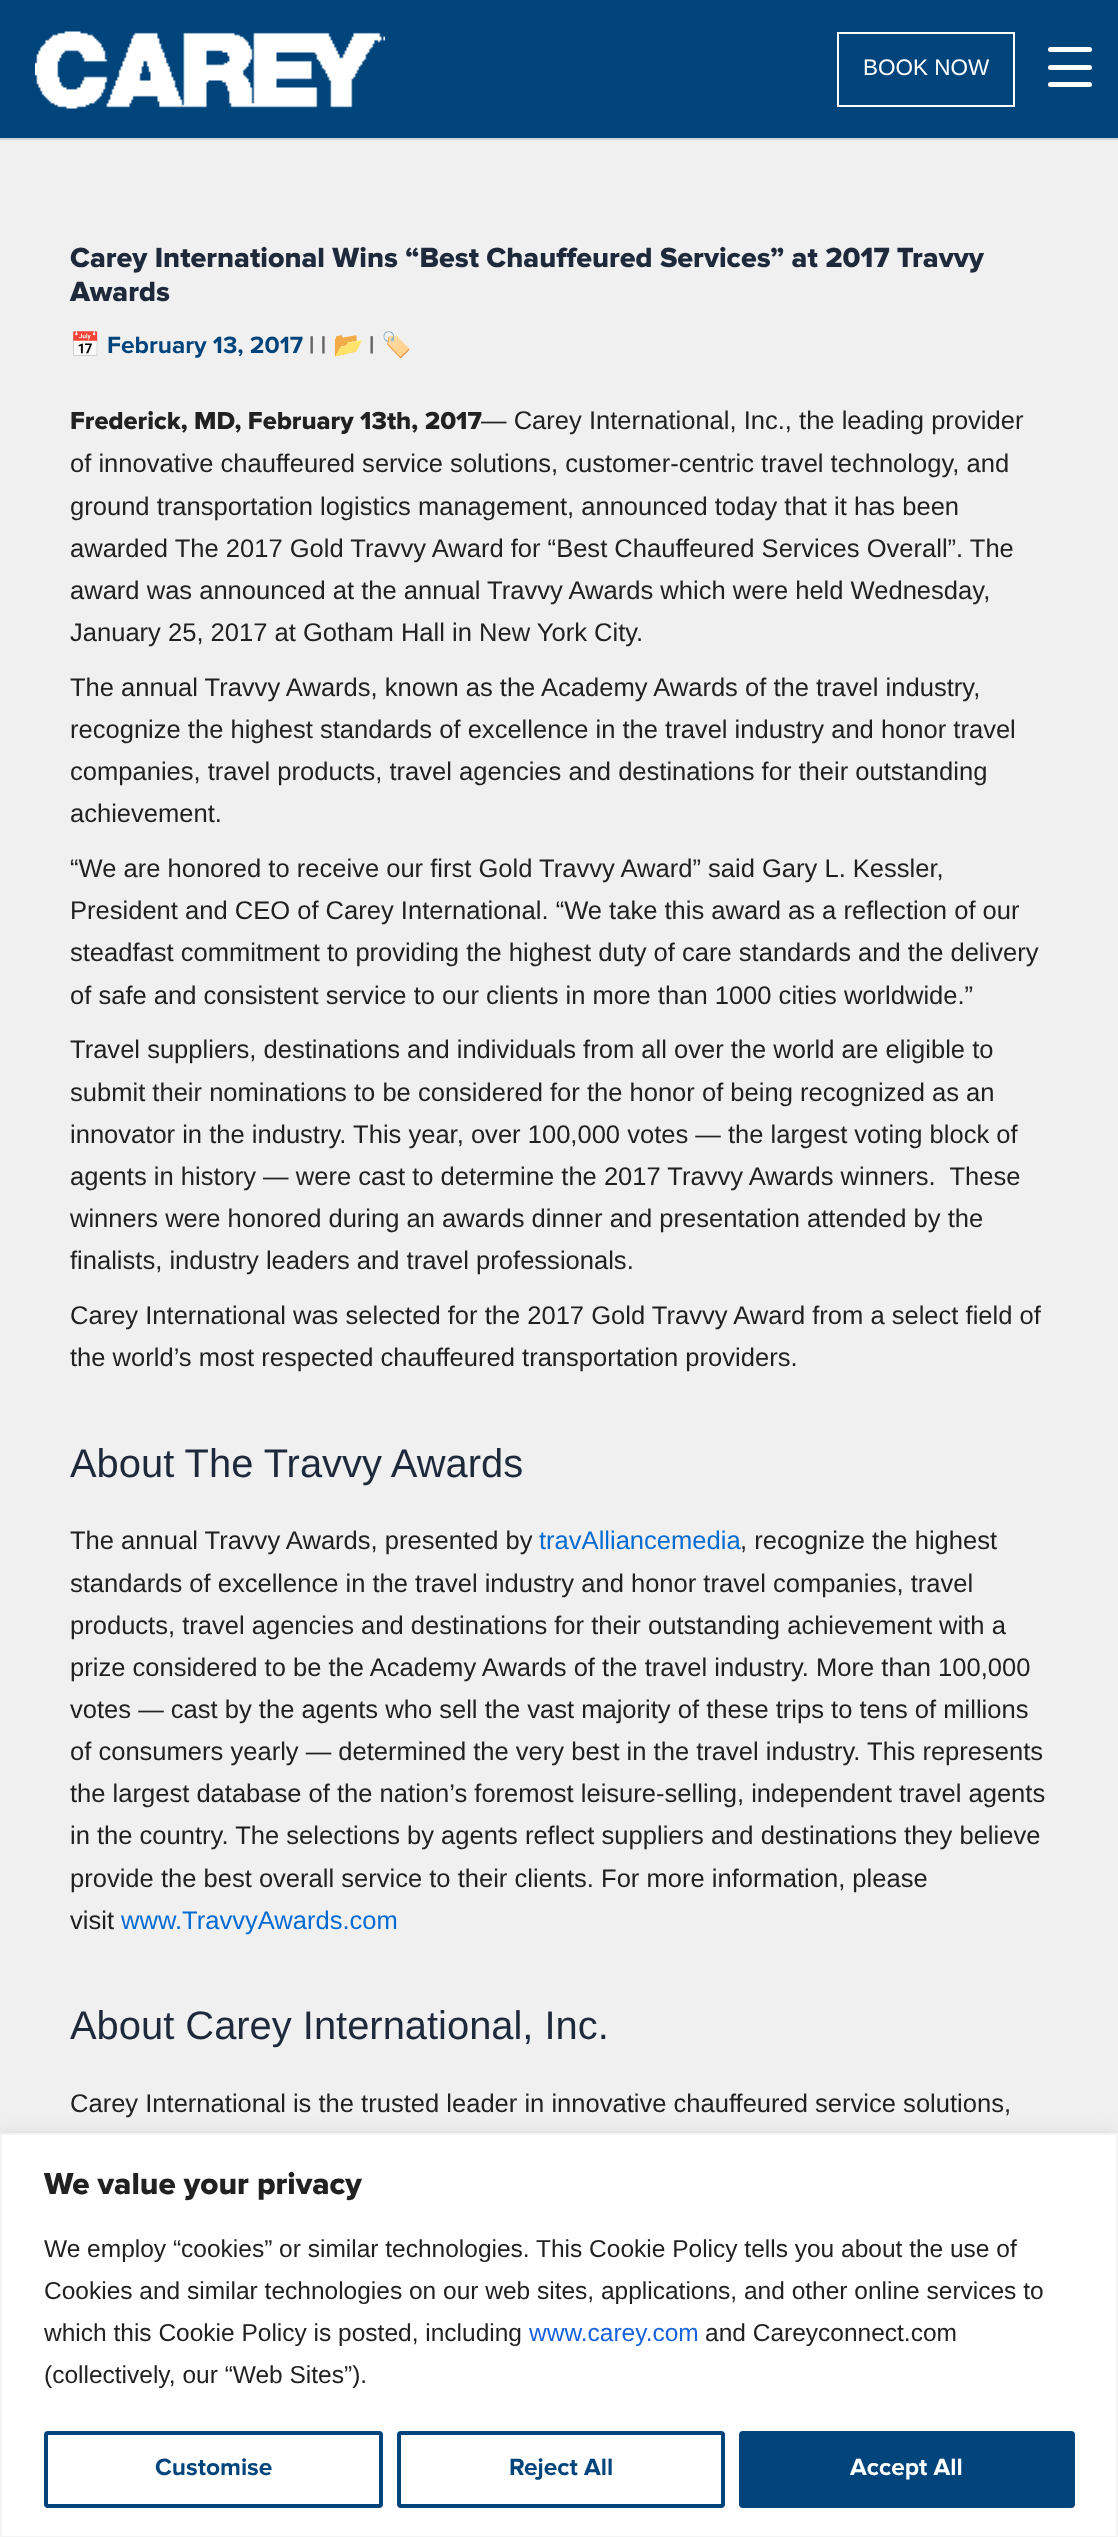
<svg xmlns="http://www.w3.org/2000/svg" width="1118" height="2537" viewBox="0 0 1118 2537">
  <rect width="100%" height="100%" fill="#f0f0f0"/>
  <path d="M0 0h1118v138H0z" fill="#00447c"/>
  <path d="M0 138h1118v2H0z" fill="#d1d5db"/>
  <image x="35" y="31" width="350" height="78" href="img/1.png"/>
  <path d="M838 33h176v73H838z" fill="none" stroke="#fff" stroke-width="2"/>
  <rect x="1048" y="65" width="44" height="5" rx="2.5" fill="#fff"/>
  <rect x="1048" y="47" width="44" height="5" rx="2.5" fill="#fff"/>
  <rect x="1048" y="82" width="44" height="5" rx="2.5" fill="#fff"/>
  <path d="M0 2132h1118v404H0z" fill="#acabab4d" filter="blur(9px)"/>
  <path d="M1 2134h1116v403H1z" fill="#fff" stroke="#f4f4f4" stroke-width="2"/>
  <rect x="46" y="2433" width="335" height="73" rx="2" fill="none" stroke="#00447c" stroke-width="4"/>
  <rect x="399" y="2433" width="324" height="73" rx="2" fill="none" stroke="#00447c" stroke-width="4"/>
  <rect x="741" y="2433" width="332" height="73" rx="2" fill="#00447c" stroke="#00447c" stroke-width="4"/>
  <text x="863" y="75" font-family="Liberation Sans" font-size="22.5" fill="#fff">BOOK NOW</text>
  <g font-family="Proxima Nova" font-size="28.75" font-weight="800" fill="#1e293b">
    <text x="70" y="267">Carey International Wins “Best Chauffeured Services” at 2017 Travvy</text>
    <text x="70" y="301">Awards</text>
  </g>
  <text x="70" y="353" font-family="Noto Color Emoji" font-size="24.5" fill="#00447c">📅</text>
  <text x="107" y="353" font-family="Proxima Nova" font-size="24.5" font-weight="bold" fill="#00447c">February 13, 2017</text>
  <text x="309" y="353" font-family="Proxima Nova" font-size="24.5" font-weight="800" fill="#666">| |</text>
  <text x="333" y="353" font-family="Noto Color Emoji" font-size="24.5" fill="#00447c">📂</text>
  <text x="369" y="353" font-family="Proxima Nova" font-size="24.5" font-weight="800" fill="#666">|</text>
  <text x="381" y="353" font-family="Noto Color Emoji" font-size="24.5" fill="#00447c">🏷️</text>
  <text x="70" y="429" font-family="Proxima Nova" font-size="25.55" font-weight="800" fill="#212121">Frederick, MD, February 13th, 2017</text>
  <g font-family="Liberation Sans" font-size="25.55" fill="#212121">
    <text x="481" y="429">— Carey International, Inc., the leading provider</text>
    <text x="70" y="472">of innovative chauffeured service solutions, customer-centric travel technology, and</text>
    <text x="70" y="515">ground transportation logistics management, announced today that it has been</text>
    <text x="70" y="557">awarded The 2017 Gold Travvy Award for “Best Chauffeured Services Overall”. The</text>
    <text x="70" y="599">award was announced at the annual Travvy Awards which were held Wednesday,</text>
    <text x="70" y="641">January 25, 2017 at Gotham Hall in New York City.</text>
    <text x="70" y="696">The annual Travvy Awards, known as the Academy Awards of the travel industry,</text>
    <text x="70" y="738">recognize the highest standards of excellence in the travel industry and honor travel</text>
    <text x="70" y="780">companies, travel products, travel agencies and destinations for their outstanding</text>
    <text x="70" y="822">achievement.</text>
    <text x="70" y="877">“We are honored to receive our first Gold Travvy Award” said Gary L. Kessler,</text>
    <text x="70" y="919">President and CEO of Carey International. “We take this award as a reflection of our</text>
    <text x="70" y="961">steadfast commitment to providing the highest duty of care standards and the delivery</text>
    <text x="70" y="1004">of safe and consistent service to our clients in more than 1000 cities worldwide.”</text>
    <text x="70" y="1058">Travel suppliers, destinations and individuals from all over the world are eligible to</text>
    <text x="70" y="1101">submit their nominations to be considered for the honor of being recognized as an</text>
    <text x="70" y="1143">innovator in the industry. This year, over 100,000 votes — the largest voting block of</text>
    <text x="70" y="1185" xml:space="preserve">agents in history — were cast to determine the 2017 Travvy Awards winners.  These</text>
    <text x="70" y="1227">winners were honored during an awards dinner and presentation attended by the</text>
    <text x="70" y="1269">finalists, industry leaders and travel professionals.</text>
    <text x="70" y="1324">Carey International was selected for the 2017 Gold Travvy Award from a select field of</text>
    <text x="70" y="1366">the world’s most respected chauffeured transportation providers.</text>
  </g>
  <text x="70" y="1477" font-family="Liberation Sans" font-size="39.9" fill="#1e293b">About The Travvy Awards</text>
  <text x="70" y="1549" font-family="Liberation Sans" font-size="25.55" fill="#212121">The annual Travvy Awards, presented by</text>
  <text x="539" y="1549" font-family="Liberation Sans" font-size="25.55" fill="#046bd2">travAlliancemedia</text>
  <g font-family="Liberation Sans" font-size="25.55" fill="#212121">
    <text x="740" y="1549">, recognize the highest</text>
    <text x="70" y="1592">standards of excellence in the travel industry and honor travel companies, travel</text>
    <text x="70" y="1634">products, travel agencies and destinations for their outstanding achievement with a</text>
    <text x="70" y="1676">prize considered to be the Academy Awards of the travel industry. More than 100,000</text>
    <text x="70" y="1718">votes — cast by the agents who sell the vast majority of these trips to tens of millions</text>
    <text x="70" y="1760">of consumers yearly — determined the very best in the travel industry. This represents</text>
    <text x="70" y="1802">the largest database of the nation’s foremost leisure-selling, independent travel agents</text>
    <text x="70" y="1844">in the country. The selections by agents reflect suppliers and destinations they believe</text>
    <text x="70" y="1887">provide the best overall service to their clients. For more information, please</text>
    <text x="70" y="1929">visit</text>
  </g>
  <text x="121" y="1929" font-family="Liberation Sans" font-size="25.55" fill="#046bd2">www.TravvyAwards.com</text>
  <text x="70" y="2039" font-family="Liberation Sans" font-size="39.9" fill="#1e293b">About Carey International, Inc.</text>
  <text x="70" y="2112" font-family="Liberation Sans" font-size="25.55" fill="#212121">Carey International is the trusted leader in innovative chauffeured service solutions,</text>
  <text x="44" y="2194" font-family="Proxima Nova" font-size="31.5" font-weight="800" fill="#212121">We value your privacy</text>
  <g font-family="Liberation Sans" font-size="24.5" fill="#212121">
    <text x="44" y="2257">We employ “cookies” or similar technologies. This Cookie Policy tells you about the use of</text>
    <text x="44" y="2299">Cookies and similar technologies on our web sites, applications, and other online services to</text>
    <text x="44" y="2341">which this Cookie Policy is posted, including</text>
  </g>
  <text x="529" y="2341" font-family="Liberation Sans" font-size="24.5" fill="#1863dc">www.carey.com</text>
  <g font-family="Liberation Sans" font-size="24.5" fill="#212121">
    <text x="705" y="2341">and Careyconnect.com</text>
    <text x="44" y="2383">(collectively, our “Web Sites”).</text>
  </g>
  <g font-family="Proxima Nova" font-size="24.5" font-weight="bold" fill="#00447c">
    <text x="155" y="2475">Customise</text>
    <text x="509" y="2475">Reject All</text>
  </g>
  <text x="850" y="2475" font-family="Proxima Nova" font-size="24.5" font-weight="bold" fill="#fff">Accept All</text>
</svg>
